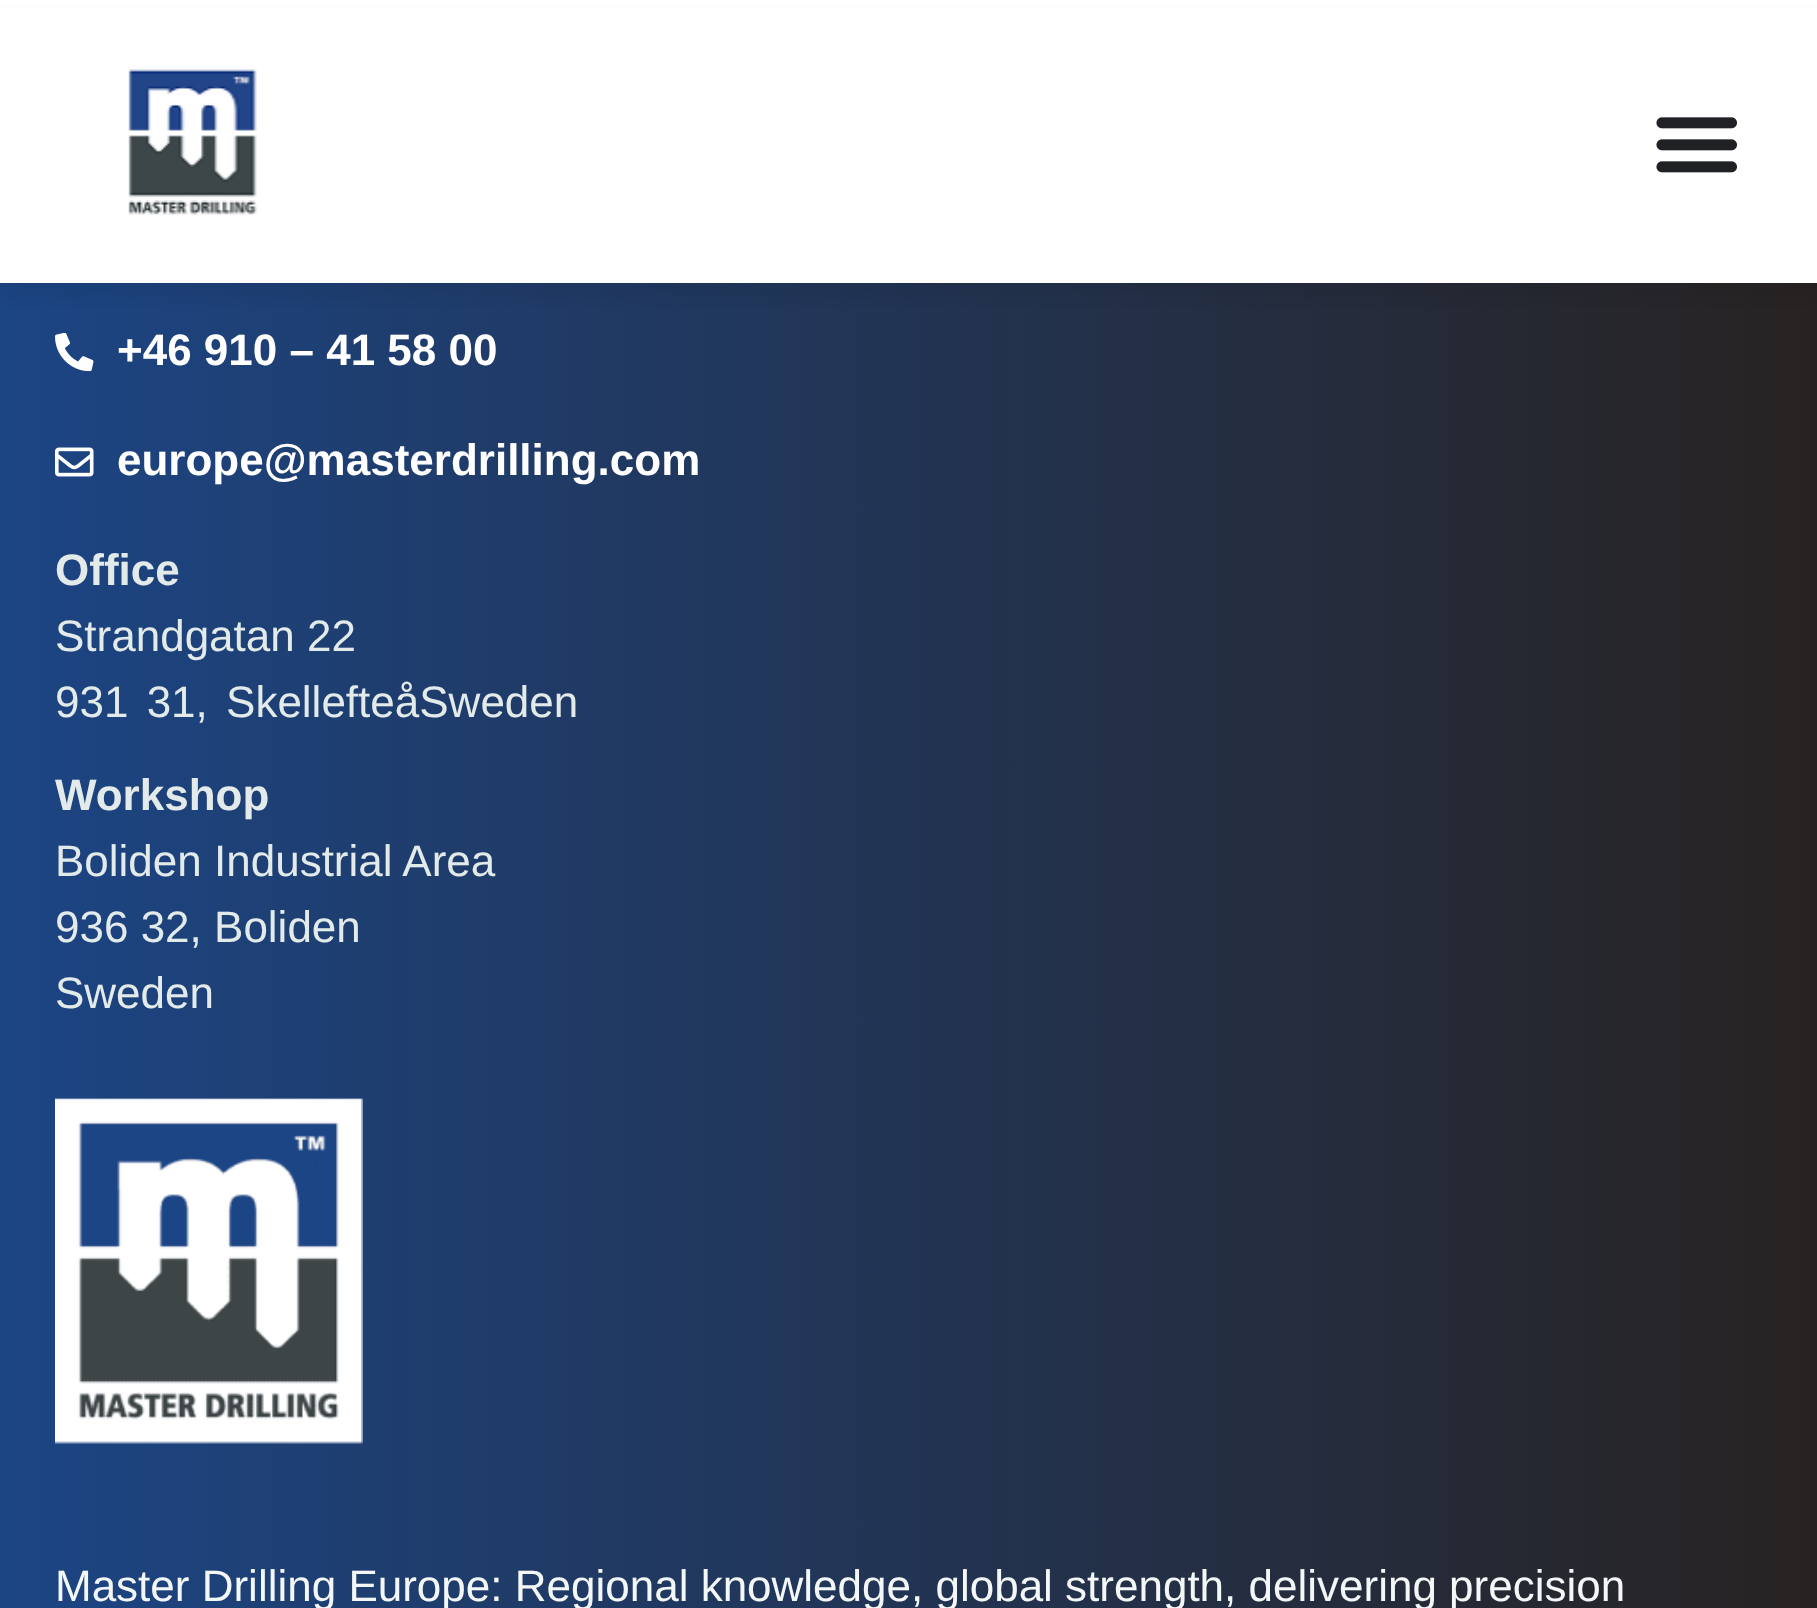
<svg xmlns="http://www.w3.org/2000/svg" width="1817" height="1608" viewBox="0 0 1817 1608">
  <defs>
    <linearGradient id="g1" gradientUnits="userSpaceOnUse" x1="0" y1="925" x2="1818" y2="925"><stop offset="0" stop-color="#1c4584"/><stop offset="1" stop-color="#282322"/></linearGradient>
  </defs>
  <rect width="100%" height="100%" fill="#fff"/>
  <path d="M0 283h1817v1325H0z" fill="url(#g1)"/>
  <path d="M0 14h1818v283H0z" fill="#0000000d" filter="blur(7px)"/>
  <path d="M0 8h1817v275H0z" fill="#fff"/>
  <image x="128" y="69" width="129" height="146" href="img/1.png"/>
  <image x="1656" y="117" width="81" height="56" href="img/2.png"/>
  <image x="55" y="333" width="39" height="38" href="img/3.png"/>
  <image x="55" y="447" width="39" height="30" href="img/4.png"/>
  <image x="55" y="1098" width="308" height="346" href="img/5.png"/>
  <g font-family="Liberation Sans" font-size="44" font-weight="bold" fill="#fff">
    <text x="117" y="365">+46 910 – 41 58 00</text>
    <text x="117" y="475">europe@masterdrilling.com</text>
  </g>
  <text x="55" y="585" font-family="Liberation Sans" font-size="44" font-weight="bold" fill="#e3eaea">Office</text>
  <g font-family="Liberation Sans" font-size="44" fill="#e3eaea">
    <text x="55" y="651">Strandgatan 22</text>
    <text x="55" y="717" word-spacing="6">931 31, SkellefteåSweden</text>
  </g>
  <text x="55" y="810" font-family="Liberation Sans" font-size="44" font-weight="bold" fill="#e3eaea">Workshop</text>
  <g font-family="Liberation Sans" font-size="44" fill="#e3eaea">
    <text x="55" y="876">Boliden Industrial Area</text>
    <text x="55" y="942">936 32, Boliden</text>
    <text x="55" y="1008">Sweden</text>
  </g>
  <text x="55" y="1601" font-family="Liberation Sans" font-size="44" fill="#f4f7f7">Master Drilling Europe: Regional knowledge, global strength, delivering precision</text>
</svg>
